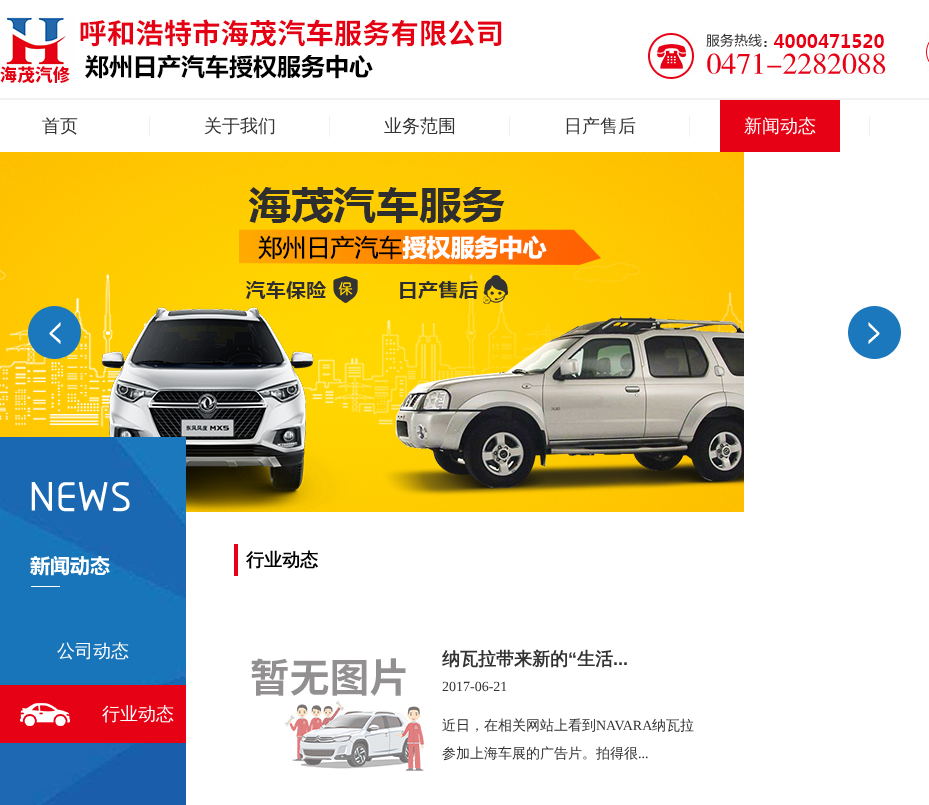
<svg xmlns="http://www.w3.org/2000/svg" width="929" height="805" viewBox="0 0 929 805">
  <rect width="100%" height="100%" fill="#fff"/>
  <image x="0" y="17" width="502" height="67" href="img/1.png"/>
  <image x="648" y="33" width="238" height="46" href="img/2.png"/>
  <image x="926" y="33" width="3" height="38" href="img/3.png"/>
  <path d="M0 98h929v2H0z" fill="#f1f1f1"/>
  <path d="M149 116h1v21H149z" fill="#f1f1f1"/>
  <path d="M329 116h1v21H329z" fill="#f1f1f1"/>
  <path d="M509 116h1v21H509z" fill="#f1f1f1"/>
  <path d="M689 116h1v21H689z" fill="#f1f1f1"/>
  <path d="M869 116h1v21H869z" fill="#f1f1f1"/>
  <path d="M720 100h120v52H720z" fill="#e60115"/>
  <image x="0" y="152" width="744" height="360" href="img/4.png"/>
  <image x="28" y="306" width="53" height="53" href="img/5.png"/>
  <image x="848" y="306" width="53" height="53" href="img/6.png"/>
  <image x="0" y="437" width="186" height="368" href="img/7.png"/>
  <image x="30" y="481" width="100" height="106" href="img/8.png"/>
  <path d="M0 685h186v58H0z" fill="#e60115"/>
  <image x="20" y="703" width="50" height="23" href="img/9.png"/>
  <path d="M234 544h4v32H234z" fill="#e60115"/>
  <image x="251" y="658" width="173" height="113" href="img/10.png"/>
  <g font-family="WenQuanYi Zen Hei" font-size="18" font-weight="500" fill="#333">
    <text x="42" y="132">首页</text>
    <text x="204" y="132">关于我们</text>
    <text x="384" y="132">业务范围</text>
    <text x="564" y="132">日产售后</text>
  </g>
  <g font-family="WenQuanYi Zen Hei" font-size="18" font-weight="500" fill="#fff">
    <text x="744" y="132">新闻动态</text>
    <text x="57" y="657">公司动态</text>
    <text x="102" y="720">行业动态</text>
  </g>
  <text x="246" y="566" font-family="WenQuanYi Zen Hei" font-size="18" font-weight="bold" fill="#000">行业动态</text>
  <text x="442" y="665" font-family="WenQuanYi Zen Hei" font-size="18" font-weight="bold" fill="#333">纳瓦拉带来新的</text>
  <text x="568" y="665" font-family="Liberation Sans" font-size="18" font-weight="bold" fill="#333">“</text>
  <text x="577" y="665" font-family="WenQuanYi Zen Hei" font-size="18" font-weight="bold" fill="#333">生活</text>
  <text x="613" y="665" font-family="Liberation Sans" font-size="18" font-weight="bold" fill="#333">...</text>
  <text x="442" y="691" font-family="Liberation Serif" font-size="14" fill="#333">2017-06-21</text>
  <text x="442" y="730" font-family="WenQuanYi Zen Hei" font-size="14" font-weight="500" fill="#333">近日，在相关网站上看到</text>
  <text x="596" y="730" font-family="Liberation Serif" font-size="14" fill="#333">NAVARA</text>
  <g font-family="WenQuanYi Zen Hei" font-size="14" font-weight="500" fill="#333">
    <text x="652" y="730">纳瓦拉</text>
    <text x="442" y="758">参加上海车展的广告片。拍得很</text>
  </g>
  <text x="638" y="758" font-family="Liberation Serif" font-size="14" fill="#333">...</text>
</svg>
